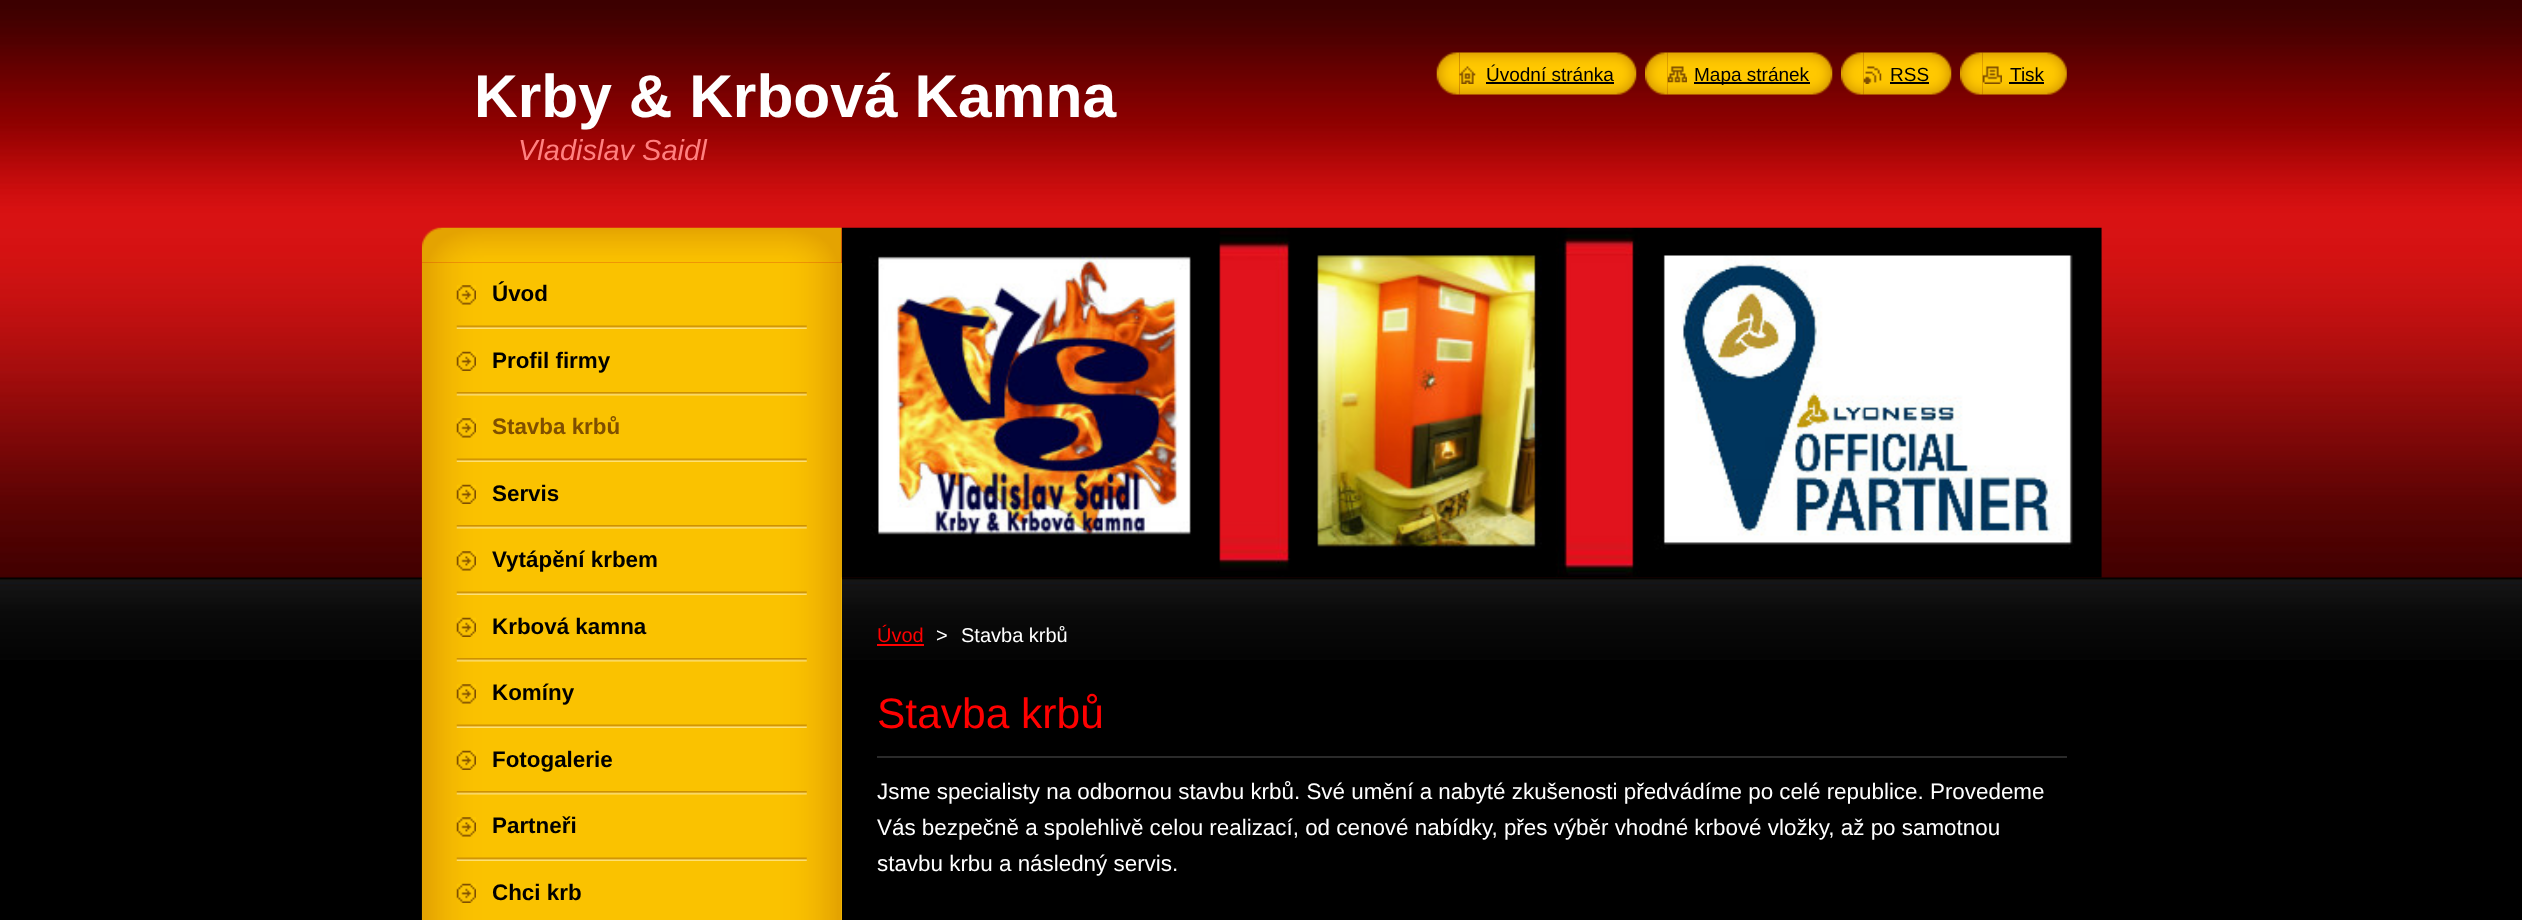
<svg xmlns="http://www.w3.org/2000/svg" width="2522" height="920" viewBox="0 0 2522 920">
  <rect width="100%" height="100%" fill="#000"/>
  <image x="0" y="0" width="2522" height="660" href="img/1.png"/>
  <image x="1436" y="52" width="24" height="43" href="img/2.png"/>
  <image x="1459" y="52" width="178" height="43" href="img/3.png"/>
  <image x="1459" y="66" width="17" height="18" href="img/4.png"/>
  <path d="M1486 82h128v2H1486z" fill="#000"/>
  <image x="1645" y="52" width="23" height="43" href="img/5.png"/>
  <image x="1667" y="52" width="166" height="43" href="img/6.png"/>
  <image x="1667" y="66" width="20" height="17" href="img/7.png"/>
  <path d="M1694 82h116v2H1694z" fill="#000"/>
  <image x="1841" y="52" width="23" height="43" href="img/8.png"/>
  <image x="1863" y="52" width="89" height="43" href="img/9.png"/>
  <image x="1863" y="66" width="19" height="18" href="img/10.png"/>
  <path d="M1890 82h39v2H1890z" fill="#000"/>
  <image x="1960" y="52" width="23" height="43" href="img/5.png"/>
  <image x="1982" y="52" width="85" height="43" href="img/11.png"/>
  <image x="1982" y="66" width="20" height="18" href="img/12.png"/>
  <path d="M2009 82h35v2H2009z" fill="#000"/>
  <image x="421" y="227" width="421" height="36" href="img/13.png"/>
  <path d="M841 263h1v657H841z" fill="#ffc800"/>
  <image x="421" y="262" width="421" height="658" href="img/14.png"/>
  <image x="456" y="325" width="351" height="4" href="img/15.png"/>
  <image x="456" y="285" width="20" height="20" href="img/16.png"/>
  <image x="456" y="392" width="351" height="4" href="img/17.png"/>
  <image x="456" y="351" width="20" height="20" href="img/18.png"/>
  <image x="456" y="458" width="351" height="4" href="img/15.png"/>
  <image x="456" y="418" width="20" height="20" href="img/16.png"/>
  <image x="456" y="525" width="351" height="4" href="img/17.png"/>
  <image x="456" y="484" width="20" height="20" href="img/18.png"/>
  <image x="456" y="591" width="351" height="4" href="img/15.png"/>
  <image x="456" y="551" width="20" height="20" href="img/16.png"/>
  <image x="456" y="658" width="351" height="4" href="img/17.png"/>
  <image x="456" y="617" width="20" height="20" href="img/18.png"/>
  <image x="456" y="724" width="351" height="4" href="img/15.png"/>
  <image x="456" y="684" width="20" height="20" href="img/16.png"/>
  <image x="456" y="791" width="351" height="4" href="img/17.png"/>
  <image x="456" y="750" width="20" height="20" href="img/18.png"/>
  <image x="456" y="857" width="351" height="4" href="img/15.png"/>
  <image x="456" y="817" width="20" height="20" href="img/16.png"/>
  <image x="456" y="883" width="20" height="20" href="img/18.png"/>
  <image x="841" y="227" width="1261" height="351" href="img/19.png"/>
  <path d="M877 644h47v2H877z" fill="#f00"/>
  <path d="M877 756h1190v2H877z" fill="#2a2a2a"/>
  <text x="474" y="117" font-family="Liberation Sans" font-size="60.5" font-weight="bold" fill="#fff">Krby &amp; Krbová Kamna</text>
  <text x="518" y="160" font-family="Liberation Sans" font-size="29" font-style="italic" fill="#ff8080">Vladislav Saidl</text>
  <g font-family="Liberation Sans" font-size="19" fill="#000">
    <text x="1486" y="81">Úvodní stránka</text>
    <text x="1694" y="81">Mapa stránek</text>
    <text x="1890" y="81">RSS</text>
    <text x="2010" y="81">Tisk</text>
  </g>
  <g font-family="Liberation Sans" font-size="22.4" font-weight="bold" fill="#000">
    <text x="492" y="301">Úvod</text>
    <text x="492" y="368">Profil firmy</text>
  </g>
  <text x="492" y="434" font-family="Liberation Sans" font-size="22.4" font-weight="bold" fill="#7f4f00">Stavba krbů</text>
  <g font-family="Liberation Sans" font-size="22.4" font-weight="bold" fill="#000">
    <text x="492" y="501">Servis</text>
    <text x="492" y="567">Vytápění krbem</text>
    <text x="492" y="634">Krbová kamna</text>
    <text x="492" y="700">Komíny</text>
    <text x="492" y="767">Fotogalerie</text>
    <text x="492" y="833">Partneři</text>
    <text x="492" y="900">Chci krb</text>
  </g>
  <text x="877" y="642" font-family="Liberation Sans" font-size="20" fill="#f00">Úvod</text>
  <g font-family="Liberation Sans" font-size="20" fill="#fff">
    <text x="936" y="642">&gt;</text>
    <text x="961" y="642">Stavba krbů</text>
  </g>
  <text x="877" y="728" font-family="Liberation Sans" font-size="42.5" fill="#f00">Stavba krbů</text>
  <g font-family="Liberation Sans" font-size="22.4" fill="#fff">
    <text x="877" y="799">Jsme specialisty na odbornou stavbu krbů. Své umění a nabyté zkušenosti předvádíme po celé republice. Provedeme</text>
    <text x="877" y="835">Vás bezpečně a spolehlivě celou realizací, od cenové nabídky, přes výběr vhodné krbové vložky, až po samotnou</text>
    <text x="877" y="871">stavbu krbu a následný servis.</text>
  </g>
</svg>
